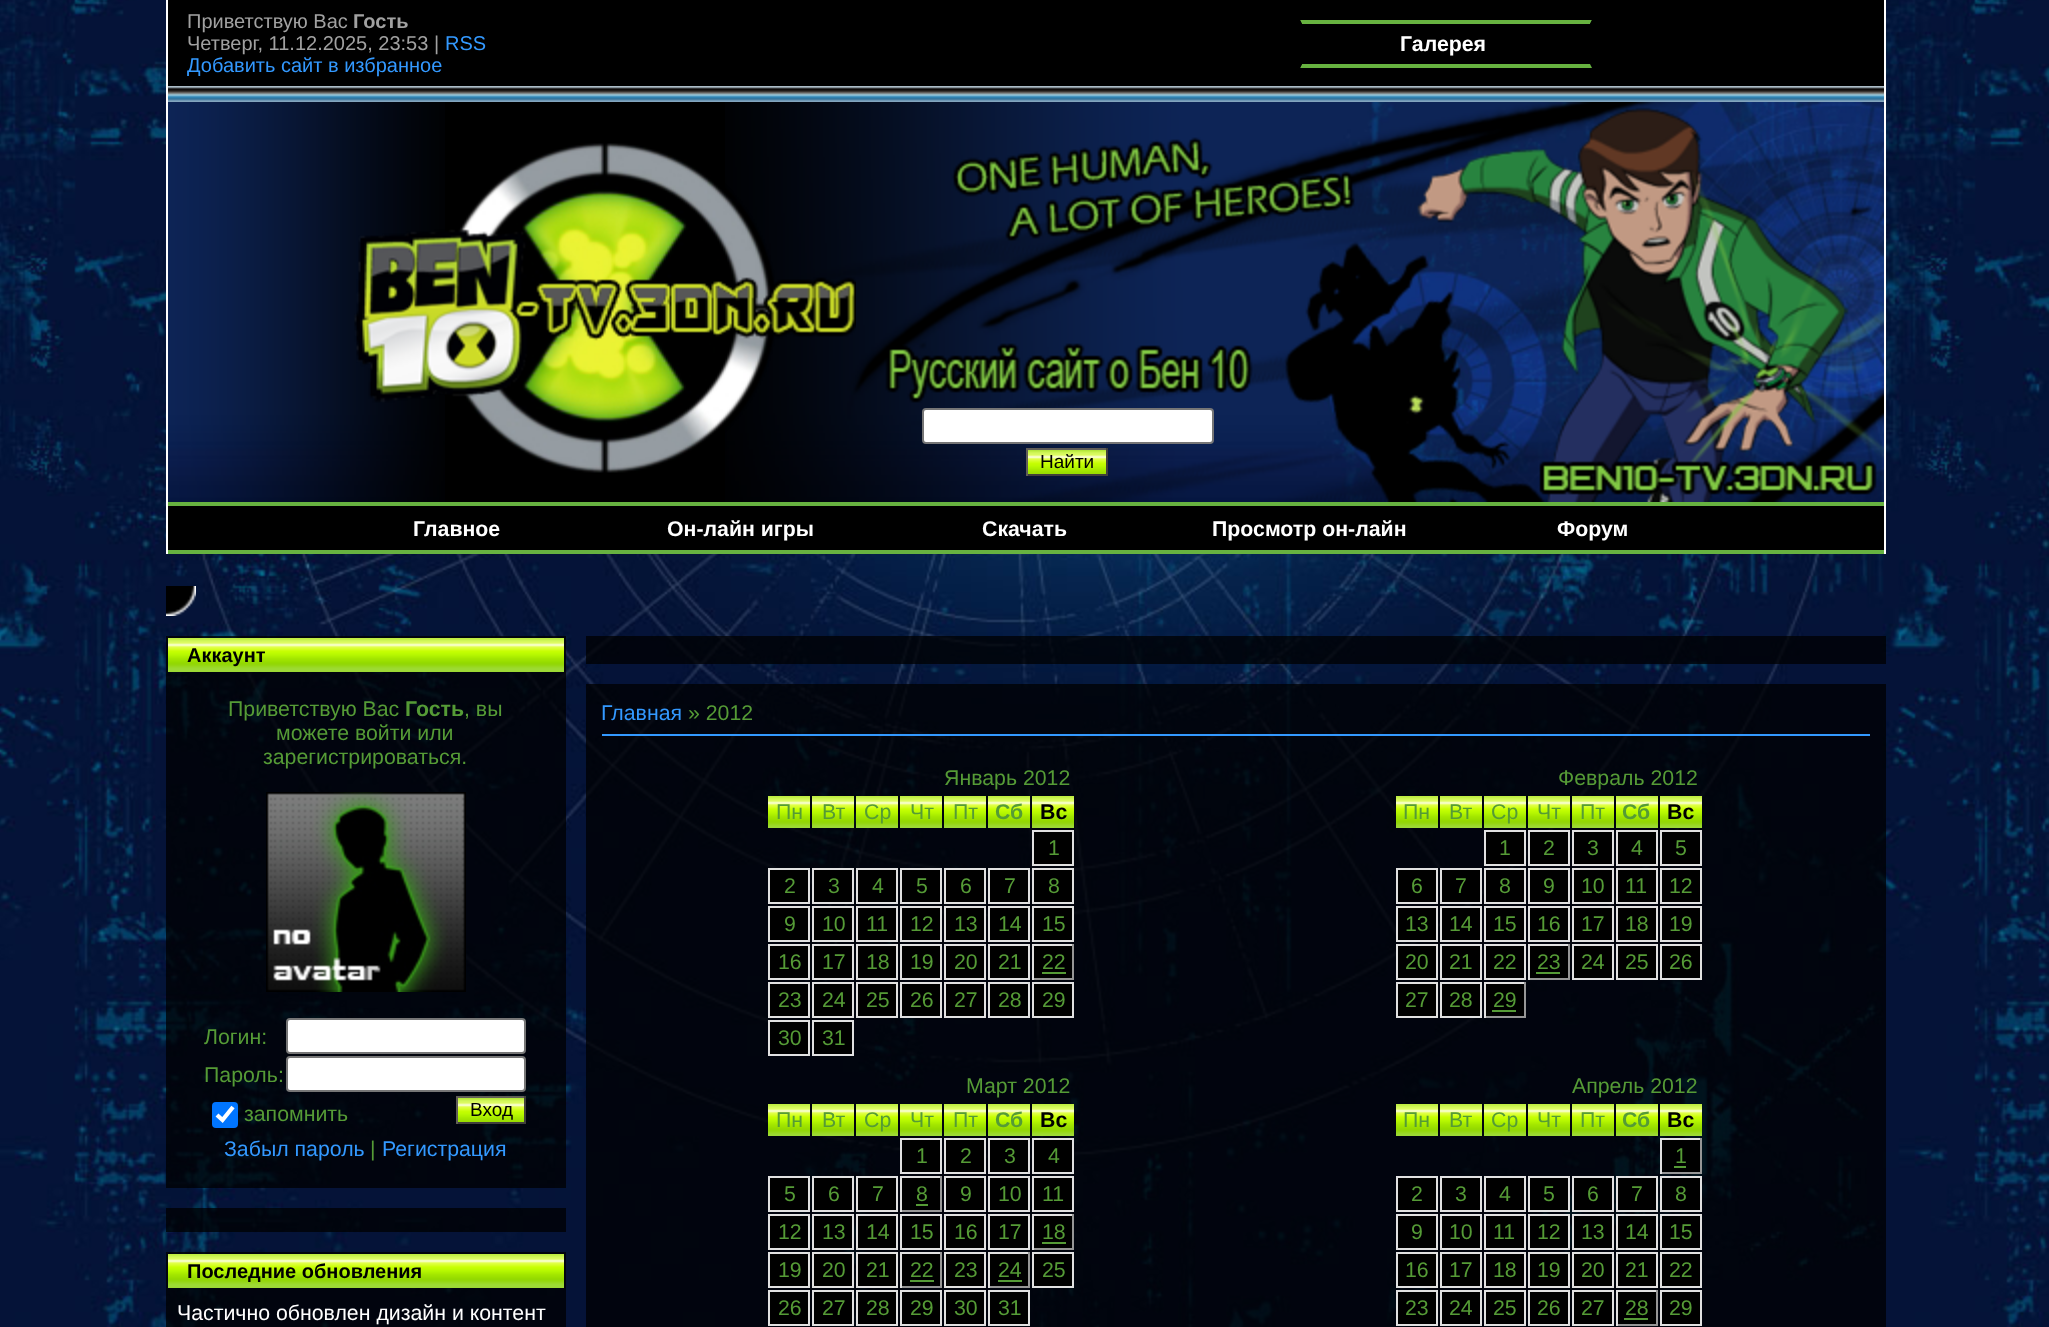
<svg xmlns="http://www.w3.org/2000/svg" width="2049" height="1327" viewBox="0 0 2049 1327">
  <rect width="100%" height="100%" fill="#fff"/>
  <image x="0" y="0" width="2049" height="1327" href="img/1.png"/>
  <path d="M1884 0h2v554H1884z" fill="#fff"/>
  <path d="M166 0h2v554H166z" fill="#fff"/>
  <path d="M168 0h1716v86H168z" fill="#000"/>
  <path d="M1300 20H1592L1590 24H1302Z" fill="#67b240"/>
  <path d="M1592 20V68L1590 64V24Z" fill="#000"/>
  <path d="M1592 68H1300L1302 64H1590Z" fill="#67b240"/>
  <path d="M1300 68V20L1302 24V64Z" fill="#000"/>
  <image x="168" y="86" width="1716" height="16" href="img/2.png"/>
  <path d="M445 102h280v400H445z" fill="#000"/>
  <image x="725" y="102" width="1159" height="400" href="img/3.png"/>
  <image x="168" y="102" width="277" height="400" href="img/4.png"/>
  <image x="354" y="143" width="502" height="330" href="img/5.png"/>
  <rect x="923" y="409" width="290" height="34" rx="3" fill="#fff" stroke="#767676" stroke-width="2"/>
  <image x="1028" y="450" width="78" height="24" href="img/6.png"/>
  <path d="M1026 448h82v2H1026z" fill="#615e58"/>
  <path d="M1106 448h2v28H1106z" fill="#413f3b"/>
  <path d="M1026 474h82v2H1026z" fill="#413f3b"/>
  <path d="M1026 448h2v28H1026z" fill="#615e58"/>
  <path d="M168 506h1716v44H168z" fill="#000"/>
  <path d="M168 502h1716v4H168z" fill="#67b240"/>
  <path d="M168 550h1716v4H168z" fill="#67b240"/>
  <image x="166" y="586" width="30" height="30" href="img/7.png"/>
  <path d="M166 636h400v552H166z" fill="#000000bf"/>
  <image x="168" y="638" width="396" height="34" href="img/8.png"/>
  <image x="266" y="792" width="200" height="200" href="img/9.png"/>
  <rect x="287" y="1019" width="238" height="34" rx="3" fill="#fff" stroke="#767676" stroke-width="2"/>
  <rect x="287" y="1057" width="238" height="34" rx="3" fill="#fff" stroke="#767676" stroke-width="2"/>
  <rect x="212" y="1102" width="26" height="26" rx="4" fill="#0075ff"/>
  <path d="M217 1115L222.5 1120L233 1107" fill="none" stroke="#fff" stroke-width="4.2"/>
  <image x="458" y="1098" width="66" height="24" href="img/10.png"/>
  <path d="M456 1096h70v2H456z" fill="#615e58"/>
  <path d="M524 1096h2v28H524z" fill="#413f3b"/>
  <path d="M456 1122h70v2H456z" fill="#413f3b"/>
  <path d="M456 1096h2v28H456z" fill="#615e58"/>
  <path d="M166 1208h400v24H166z" fill="#000000bf"/>
  <path d="M166 1252h400v75H166z" fill="#000000bf"/>
  <image x="168" y="1254" width="396" height="34" href="img/8.png"/>
  <path d="M586 636h1300v28H586z" fill="#000000bf"/>
  <path d="M586 684h1300v643H586z" fill="#000000bf"/>
  <path d="M602 734h1268v2H602z" fill="#39f"/>
  <image x="768" y="796" width="42" height="32" href="img/11.png"/>
  <image x="812" y="796" width="42" height="32" href="img/11.png"/>
  <image x="856" y="796" width="42" height="32" href="img/11.png"/>
  <image x="900" y="796" width="42" height="32" href="img/11.png"/>
  <image x="944" y="796" width="42" height="32" href="img/11.png"/>
  <image x="988" y="796" width="42" height="32" href="img/11.png"/>
  <image x="1032" y="796" width="42" height="32" href="img/11.png"/>
  <path d="M1033 831h40v34H1033z" fill="#000" stroke="#e1e1e1" stroke-width="2"/>
  <path d="M769 869h40v34H769z" fill="#000" stroke="#e1e1e1" stroke-width="2"/>
  <path d="M813 869h40v34H813z" fill="#000" stroke="#e1e1e1" stroke-width="2"/>
  <path d="M857 869h40v34H857z" fill="#000" stroke="#e1e1e1" stroke-width="2"/>
  <path d="M901 869h40v34H901z" fill="#000" stroke="#e1e1e1" stroke-width="2"/>
  <path d="M945 869h40v34H945z" fill="#000" stroke="#e1e1e1" stroke-width="2"/>
  <path d="M989 869h40v34H989z" fill="#000" stroke="#e1e1e1" stroke-width="2"/>
  <path d="M1033 869h40v34H1033z" fill="#000" stroke="#e1e1e1" stroke-width="2"/>
  <path d="M769 907h40v34H769z" fill="#000" stroke="#e1e1e1" stroke-width="2"/>
  <path d="M813 907h40v34H813z" fill="#000" stroke="#e1e1e1" stroke-width="2"/>
  <path d="M857 907h40v34H857z" fill="#000" stroke="#e1e1e1" stroke-width="2"/>
  <path d="M901 907h40v34H901z" fill="#000" stroke="#e1e1e1" stroke-width="2"/>
  <path d="M945 907h40v34H945z" fill="#000" stroke="#e1e1e1" stroke-width="2"/>
  <path d="M989 907h40v34H989z" fill="#000" stroke="#e1e1e1" stroke-width="2"/>
  <path d="M1033 907h40v34H1033z" fill="#000" stroke="#e1e1e1" stroke-width="2"/>
  <path d="M769 945h40v34H769z" fill="#000" stroke="#e1e1e1" stroke-width="2"/>
  <path d="M813 945h40v34H813z" fill="#000" stroke="#e1e1e1" stroke-width="2"/>
  <path d="M857 945h40v34H857z" fill="#000" stroke="#e1e1e1" stroke-width="2"/>
  <path d="M901 945h40v34H901z" fill="#000" stroke="#e1e1e1" stroke-width="2"/>
  <path d="M945 945h40v34H945z" fill="#000" stroke="#e1e1e1" stroke-width="2"/>
  <path d="M989 945h40v34H989z" fill="#000" stroke="#e1e1e1" stroke-width="2"/>
  <path d="M1034 946h38v32H1034z" fill="#000"/>
  <path d="M1032 944h42v2H1032z" fill="#e1e1e1"/>
  <path d="M1072 944h2v36H1072z" fill="#969696"/>
  <path d="M1032 978h42v2H1032z" fill="#969696"/>
  <path d="M1032 944h2v36H1032z" fill="#e1e1e1"/>
  <path d="M1042 972h24v2H1042z" fill="#559b36"/>
  <path d="M769 983h40v34H769z" fill="#000" stroke="#e1e1e1" stroke-width="2"/>
  <path d="M813 983h40v34H813z" fill="#000" stroke="#e1e1e1" stroke-width="2"/>
  <path d="M857 983h40v34H857z" fill="#000" stroke="#e1e1e1" stroke-width="2"/>
  <path d="M901 983h40v34H901z" fill="#000" stroke="#e1e1e1" stroke-width="2"/>
  <path d="M945 983h40v34H945z" fill="#000" stroke="#e1e1e1" stroke-width="2"/>
  <path d="M989 983h40v34H989z" fill="#000" stroke="#e1e1e1" stroke-width="2"/>
  <path d="M1033 983h40v34H1033z" fill="#000" stroke="#e1e1e1" stroke-width="2"/>
  <path d="M769 1021h40v34H769z" fill="#000" stroke="#e1e1e1" stroke-width="2"/>
  <path d="M813 1021h40v34H813z" fill="#000" stroke="#e1e1e1" stroke-width="2"/>
  <image x="1396" y="796" width="42" height="32" href="img/11.png"/>
  <image x="1440" y="796" width="42" height="32" href="img/11.png"/>
  <image x="1484" y="796" width="42" height="32" href="img/11.png"/>
  <image x="1528" y="796" width="42" height="32" href="img/11.png"/>
  <image x="1572" y="796" width="42" height="32" href="img/11.png"/>
  <image x="1616" y="796" width="42" height="32" href="img/11.png"/>
  <image x="1660" y="796" width="42" height="32" href="img/11.png"/>
  <path d="M1485 831h40v34H1485z" fill="#000" stroke="#e1e1e1" stroke-width="2"/>
  <path d="M1529 831h40v34H1529z" fill="#000" stroke="#e1e1e1" stroke-width="2"/>
  <path d="M1573 831h40v34H1573z" fill="#000" stroke="#e1e1e1" stroke-width="2"/>
  <path d="M1617 831h40v34H1617z" fill="#000" stroke="#e1e1e1" stroke-width="2"/>
  <path d="M1661 831h40v34H1661z" fill="#000" stroke="#e1e1e1" stroke-width="2"/>
  <path d="M1397 869h40v34H1397z" fill="#000" stroke="#e1e1e1" stroke-width="2"/>
  <path d="M1441 869h40v34H1441z" fill="#000" stroke="#e1e1e1" stroke-width="2"/>
  <path d="M1485 869h40v34H1485z" fill="#000" stroke="#e1e1e1" stroke-width="2"/>
  <path d="M1529 869h40v34H1529z" fill="#000" stroke="#e1e1e1" stroke-width="2"/>
  <path d="M1573 869h40v34H1573z" fill="#000" stroke="#e1e1e1" stroke-width="2"/>
  <path d="M1617 869h40v34H1617z" fill="#000" stroke="#e1e1e1" stroke-width="2"/>
  <path d="M1661 869h40v34H1661z" fill="#000" stroke="#e1e1e1" stroke-width="2"/>
  <path d="M1397 907h40v34H1397z" fill="#000" stroke="#e1e1e1" stroke-width="2"/>
  <path d="M1441 907h40v34H1441z" fill="#000" stroke="#e1e1e1" stroke-width="2"/>
  <path d="M1485 907h40v34H1485z" fill="#000" stroke="#e1e1e1" stroke-width="2"/>
  <path d="M1529 907h40v34H1529z" fill="#000" stroke="#e1e1e1" stroke-width="2"/>
  <path d="M1573 907h40v34H1573z" fill="#000" stroke="#e1e1e1" stroke-width="2"/>
  <path d="M1617 907h40v34H1617z" fill="#000" stroke="#e1e1e1" stroke-width="2"/>
  <path d="M1661 907h40v34H1661z" fill="#000" stroke="#e1e1e1" stroke-width="2"/>
  <path d="M1397 945h40v34H1397z" fill="#000" stroke="#e1e1e1" stroke-width="2"/>
  <path d="M1441 945h40v34H1441z" fill="#000" stroke="#e1e1e1" stroke-width="2"/>
  <path d="M1485 945h40v34H1485z" fill="#000" stroke="#e1e1e1" stroke-width="2"/>
  <path d="M1530 946h38v32H1530z" fill="#000"/>
  <path d="M1528 944h42v2H1528z" fill="#e1e1e1"/>
  <path d="M1568 944h2v36H1568z" fill="#969696"/>
  <path d="M1528 978h42v2H1528z" fill="#969696"/>
  <path d="M1528 944h2v36H1528z" fill="#e1e1e1"/>
  <path d="M1536 972h24v2H1536z" fill="#559b36"/>
  <path d="M1573 945h40v34H1573z" fill="#000" stroke="#e1e1e1" stroke-width="2"/>
  <path d="M1617 945h40v34H1617z" fill="#000" stroke="#e1e1e1" stroke-width="2"/>
  <path d="M1661 945h40v34H1661z" fill="#000" stroke="#e1e1e1" stroke-width="2"/>
  <path d="M1397 983h40v34H1397z" fill="#000" stroke="#e1e1e1" stroke-width="2"/>
  <path d="M1441 983h40v34H1441z" fill="#000" stroke="#e1e1e1" stroke-width="2"/>
  <path d="M1486 984h38v32H1486z" fill="#000"/>
  <path d="M1484 982h42v2H1484z" fill="#e1e1e1"/>
  <path d="M1524 982h2v36H1524z" fill="#969696"/>
  <path d="M1484 1016h42v2H1484z" fill="#969696"/>
  <path d="M1484 982h2v36H1484z" fill="#e1e1e1"/>
  <path d="M1492 1010h24v2H1492z" fill="#559b36"/>
  <image x="768" y="1104" width="42" height="32" href="img/11.png"/>
  <image x="812" y="1104" width="42" height="32" href="img/11.png"/>
  <image x="856" y="1104" width="42" height="32" href="img/11.png"/>
  <image x="900" y="1104" width="42" height="32" href="img/11.png"/>
  <image x="944" y="1104" width="42" height="32" href="img/11.png"/>
  <image x="988" y="1104" width="42" height="32" href="img/11.png"/>
  <image x="1032" y="1104" width="42" height="32" href="img/11.png"/>
  <path d="M901 1139h40v34H901z" fill="#000" stroke="#e1e1e1" stroke-width="2"/>
  <path d="M945 1139h40v34H945z" fill="#000" stroke="#e1e1e1" stroke-width="2"/>
  <path d="M989 1139h40v34H989z" fill="#000" stroke="#e1e1e1" stroke-width="2"/>
  <path d="M1033 1139h40v34H1033z" fill="#000" stroke="#e1e1e1" stroke-width="2"/>
  <path d="M769 1177h40v34H769z" fill="#000" stroke="#e1e1e1" stroke-width="2"/>
  <path d="M813 1177h40v34H813z" fill="#000" stroke="#e1e1e1" stroke-width="2"/>
  <path d="M857 1177h40v34H857z" fill="#000" stroke="#e1e1e1" stroke-width="2"/>
  <path d="M902 1178h38v32H902z" fill="#000"/>
  <path d="M900 1176h42v2H900z" fill="#e1e1e1"/>
  <path d="M940 1176h2v36H940z" fill="#969696"/>
  <path d="M900 1210h42v2H900z" fill="#969696"/>
  <path d="M900 1176h2v36H900z" fill="#e1e1e1"/>
  <path d="M916 1204h12v2H916z" fill="#559b36"/>
  <path d="M945 1177h40v34H945z" fill="#000" stroke="#e1e1e1" stroke-width="2"/>
  <path d="M989 1177h40v34H989z" fill="#000" stroke="#e1e1e1" stroke-width="2"/>
  <path d="M1033 1177h40v34H1033z" fill="#000" stroke="#e1e1e1" stroke-width="2"/>
  <path d="M769 1215h40v34H769z" fill="#000" stroke="#e1e1e1" stroke-width="2"/>
  <path d="M813 1215h40v34H813z" fill="#000" stroke="#e1e1e1" stroke-width="2"/>
  <path d="M857 1215h40v34H857z" fill="#000" stroke="#e1e1e1" stroke-width="2"/>
  <path d="M901 1215h40v34H901z" fill="#000" stroke="#e1e1e1" stroke-width="2"/>
  <path d="M945 1215h40v34H945z" fill="#000" stroke="#e1e1e1" stroke-width="2"/>
  <path d="M989 1215h40v34H989z" fill="#000" stroke="#e1e1e1" stroke-width="2"/>
  <path d="M1034 1216h38v32H1034z" fill="#000"/>
  <path d="M1032 1214h42v2H1032z" fill="#e1e1e1"/>
  <path d="M1072 1214h2v36H1072z" fill="#969696"/>
  <path d="M1032 1248h42v2H1032z" fill="#969696"/>
  <path d="M1032 1214h2v36H1032z" fill="#e1e1e1"/>
  <path d="M1042 1242h24v2H1042z" fill="#559b36"/>
  <path d="M769 1253h40v34H769z" fill="#000" stroke="#e1e1e1" stroke-width="2"/>
  <path d="M813 1253h40v34H813z" fill="#000" stroke="#e1e1e1" stroke-width="2"/>
  <path d="M857 1253h40v34H857z" fill="#000" stroke="#e1e1e1" stroke-width="2"/>
  <path d="M902 1254h38v32H902z" fill="#000"/>
  <path d="M900 1252h42v2H900z" fill="#e1e1e1"/>
  <path d="M940 1252h2v36H940z" fill="#969696"/>
  <path d="M900 1286h42v2H900z" fill="#969696"/>
  <path d="M900 1252h2v36H900z" fill="#e1e1e1"/>
  <path d="M910 1280h24v2H910z" fill="#559b36"/>
  <path d="M945 1253h40v34H945z" fill="#000" stroke="#e1e1e1" stroke-width="2"/>
  <path d="M990 1254h38v32H990z" fill="#000"/>
  <path d="M988 1252h42v2H988z" fill="#e1e1e1"/>
  <path d="M1028 1252h2v36H1028z" fill="#969696"/>
  <path d="M988 1286h42v2H988z" fill="#969696"/>
  <path d="M988 1252h2v36H988z" fill="#e1e1e1"/>
  <path d="M998 1280h24v2H998z" fill="#559b36"/>
  <path d="M1033 1253h40v34H1033z" fill="#000" stroke="#e1e1e1" stroke-width="2"/>
  <path d="M769 1291h40v34H769z" fill="#000" stroke="#e1e1e1" stroke-width="2"/>
  <path d="M813 1291h40v34H813z" fill="#000" stroke="#e1e1e1" stroke-width="2"/>
  <path d="M857 1291h40v34H857z" fill="#000" stroke="#e1e1e1" stroke-width="2"/>
  <path d="M901 1291h40v34H901z" fill="#000" stroke="#e1e1e1" stroke-width="2"/>
  <path d="M945 1291h40v34H945z" fill="#000" stroke="#e1e1e1" stroke-width="2"/>
  <path d="M989 1291h40v34H989z" fill="#000" stroke="#e1e1e1" stroke-width="2"/>
  <image x="1396" y="1104" width="42" height="32" href="img/11.png"/>
  <image x="1440" y="1104" width="42" height="32" href="img/11.png"/>
  <image x="1484" y="1104" width="42" height="32" href="img/11.png"/>
  <image x="1528" y="1104" width="42" height="32" href="img/11.png"/>
  <image x="1572" y="1104" width="42" height="32" href="img/11.png"/>
  <image x="1616" y="1104" width="42" height="32" href="img/11.png"/>
  <image x="1660" y="1104" width="42" height="32" href="img/11.png"/>
  <path d="M1662 1140h38v32H1662z" fill="#000"/>
  <path d="M1660 1138h42v2H1660z" fill="#e1e1e1"/>
  <path d="M1700 1138h2v36H1700z" fill="#969696"/>
  <path d="M1660 1172h42v2H1660z" fill="#969696"/>
  <path d="M1660 1138h2v36H1660z" fill="#e1e1e1"/>
  <path d="M1674 1166h12v2H1674z" fill="#559b36"/>
  <path d="M1397 1177h40v34H1397z" fill="#000" stroke="#e1e1e1" stroke-width="2"/>
  <path d="M1441 1177h40v34H1441z" fill="#000" stroke="#e1e1e1" stroke-width="2"/>
  <path d="M1485 1177h40v34H1485z" fill="#000" stroke="#e1e1e1" stroke-width="2"/>
  <path d="M1529 1177h40v34H1529z" fill="#000" stroke="#e1e1e1" stroke-width="2"/>
  <path d="M1573 1177h40v34H1573z" fill="#000" stroke="#e1e1e1" stroke-width="2"/>
  <path d="M1617 1177h40v34H1617z" fill="#000" stroke="#e1e1e1" stroke-width="2"/>
  <path d="M1661 1177h40v34H1661z" fill="#000" stroke="#e1e1e1" stroke-width="2"/>
  <path d="M1397 1215h40v34H1397z" fill="#000" stroke="#e1e1e1" stroke-width="2"/>
  <path d="M1441 1215h40v34H1441z" fill="#000" stroke="#e1e1e1" stroke-width="2"/>
  <path d="M1485 1215h40v34H1485z" fill="#000" stroke="#e1e1e1" stroke-width="2"/>
  <path d="M1529 1215h40v34H1529z" fill="#000" stroke="#e1e1e1" stroke-width="2"/>
  <path d="M1573 1215h40v34H1573z" fill="#000" stroke="#e1e1e1" stroke-width="2"/>
  <path d="M1617 1215h40v34H1617z" fill="#000" stroke="#e1e1e1" stroke-width="2"/>
  <path d="M1661 1215h40v34H1661z" fill="#000" stroke="#e1e1e1" stroke-width="2"/>
  <path d="M1397 1253h40v34H1397z" fill="#000" stroke="#e1e1e1" stroke-width="2"/>
  <path d="M1441 1253h40v34H1441z" fill="#000" stroke="#e1e1e1" stroke-width="2"/>
  <path d="M1485 1253h40v34H1485z" fill="#000" stroke="#e1e1e1" stroke-width="2"/>
  <path d="M1529 1253h40v34H1529z" fill="#000" stroke="#e1e1e1" stroke-width="2"/>
  <path d="M1573 1253h40v34H1573z" fill="#000" stroke="#e1e1e1" stroke-width="2"/>
  <path d="M1617 1253h40v34H1617z" fill="#000" stroke="#e1e1e1" stroke-width="2"/>
  <path d="M1661 1253h40v34H1661z" fill="#000" stroke="#e1e1e1" stroke-width="2"/>
  <path d="M1397 1291h40v34H1397z" fill="#000" stroke="#e1e1e1" stroke-width="2"/>
  <path d="M1441 1291h40v34H1441z" fill="#000" stroke="#e1e1e1" stroke-width="2"/>
  <path d="M1485 1291h40v34H1485z" fill="#000" stroke="#e1e1e1" stroke-width="2"/>
  <path d="M1529 1291h40v34H1529z" fill="#000" stroke="#e1e1e1" stroke-width="2"/>
  <path d="M1573 1291h40v34H1573z" fill="#000" stroke="#e1e1e1" stroke-width="2"/>
  <path d="M1618 1292h38v32H1618z" fill="#000"/>
  <path d="M1616 1290h42v2H1616z" fill="#e1e1e1"/>
  <path d="M1656 1290h2v36H1656z" fill="#969696"/>
  <path d="M1616 1324h42v2H1616z" fill="#969696"/>
  <path d="M1616 1290h2v36H1616z" fill="#e1e1e1"/>
  <path d="M1624 1318h24v2H1624z" fill="#559b36"/>
  <path d="M1661 1291h40v34H1661z" fill="#000" stroke="#e1e1e1" stroke-width="2"/>
  <text x="187" y="28" font-family="Liberation Sans" font-size="20" fill="#a1a1a1">Приветствую Вас</text>
  <text x="353" y="28" font-family="Liberation Sans" font-size="20" font-weight="bold" fill="#a1a1a1">Гость</text>
  <text x="187" y="50" font-family="Liberation Sans" font-size="20" fill="#a1a1a1">Четверг, 11.12.2025, 23:53 |</text>
  <g font-family="Liberation Sans" font-size="20" fill="#39f">
    <text x="445" y="50">RSS</text>
    <text x="187" y="72">Добавить сайт в избранное</text>
  </g>
  <text x="1400" y="51" font-family="Liberation Sans" font-size="21.3" font-weight="bold" fill="#fff">Галерея</text>
  <text x="1040" y="468" font-family="Liberation Sans" font-size="19" fill="#000">Найти</text>
  <g font-family="Liberation Sans" font-size="21.3" font-weight="bold" fill="#fff">
    <text x="413" y="536">Главное</text>
    <text x="667" y="536">Он-лайн игры</text>
    <text x="982" y="536">Скачать</text>
    <text x="1212" y="536">Просмотр он-лайн</text>
    <text x="1557" y="536">Форум</text>
  </g>
  <text x="187" y="662" font-family="Liberation Sans" font-size="20" font-weight="bold" fill="#000">Аккаунт</text>
  <text x="228" y="716" font-family="Liberation Sans" font-size="21.3" fill="#559b36">Приветствую Вас</text>
  <text x="405" y="716" font-family="Liberation Sans" font-size="21.3" font-weight="bold" fill="#559b36">Гость</text>
  <g font-family="Liberation Sans" font-size="21.3" fill="#559b36">
    <text x="464" y="716">, вы</text>
    <text x="276" y="740">можете войти или</text>
    <text x="263" y="764">зарегистрироваться.</text>
    <text x="204" y="1044">Логин:</text>
    <text x="204" y="1082">Пароль:</text>
    <text x="244" y="1121">запомнить</text>
  </g>
  <text x="470" y="1116" font-family="Liberation Sans" font-size="19" fill="#000">Вход</text>
  <text x="224" y="1156" font-family="Liberation Sans" font-size="21.3" fill="#39f">Забыл пароль</text>
  <text x="370" y="1156" font-family="Liberation Sans" font-size="21.3" fill="#559b36">|</text>
  <text x="382" y="1156" font-family="Liberation Sans" font-size="21.3" fill="#39f">Регистрация</text>
  <text x="187" y="1278" font-family="Liberation Sans" font-size="20" font-weight="bold" fill="#000">Последние обновления</text>
  <text x="177" y="1320" font-family="Liberation Sans" font-size="21.3" fill="#fff">Частично обновлен дизайн и контент</text>
  <text x="601" y="720" font-family="Liberation Sans" font-size="21.3" fill="#39f">Главная</text>
  <g font-family="Liberation Sans" font-size="21.3" fill="#559b36">
    <text x="688" y="720">» 2012</text>
    <text x="944" y="785">Январь 2012</text>
    <text x="776" y="819">Пн</text>
    <text x="822" y="819">Вт</text>
    <text x="864" y="819">Ср</text>
    <text x="910" y="819">Чт</text>
    <text x="953" y="819">Пт</text>
  </g>
  <text x="995" y="819" font-family="Liberation Sans" font-size="21.3" font-weight="bold" fill="#559b36">Сб</text>
  <text x="1040" y="819" font-family="Liberation Sans" font-size="21.3" font-weight="bold" fill="#000">Вс</text>
  <g font-family="Liberation Sans" font-size="21.3" fill="#559b36">
    <text x="1048" y="855">1</text>
    <text x="784" y="893">2</text>
    <text x="828" y="893">3</text>
    <text x="872" y="893">4</text>
    <text x="916" y="893">5</text>
    <text x="960" y="893">6</text>
    <text x="1004" y="893">7</text>
    <text x="1048" y="893">8</text>
    <text x="784" y="931">9</text>
    <text x="822" y="931">10</text>
    <text x="866" y="931">11</text>
    <text x="910" y="931">12</text>
    <text x="954" y="931">13</text>
    <text x="998" y="931">14</text>
    <text x="1042" y="931">15</text>
    <text x="778" y="969">16</text>
    <text x="822" y="969">17</text>
    <text x="866" y="969">18</text>
    <text x="910" y="969">19</text>
    <text x="954" y="969">20</text>
    <text x="998" y="969">21</text>
    <text x="1042" y="969">22</text>
    <text x="778" y="1007">23</text>
    <text x="822" y="1007">24</text>
    <text x="866" y="1007">25</text>
    <text x="910" y="1007">26</text>
    <text x="954" y="1007">27</text>
    <text x="998" y="1007">28</text>
    <text x="1042" y="1007">29</text>
    <text x="778" y="1045">30</text>
    <text x="822" y="1045">31</text>
    <text x="1558" y="785">Февраль 2012</text>
    <text x="1403" y="819">Пн</text>
    <text x="1449" y="819">Вт</text>
    <text x="1491" y="819">Ср</text>
    <text x="1537" y="819">Чт</text>
    <text x="1580" y="819">Пт</text>
  </g>
  <text x="1622" y="819" font-family="Liberation Sans" font-size="21.3" font-weight="bold" fill="#559b36">Сб</text>
  <text x="1667" y="819" font-family="Liberation Sans" font-size="21.3" font-weight="bold" fill="#000">Вс</text>
  <g font-family="Liberation Sans" font-size="21.3" fill="#559b36">
    <text x="1499" y="855">1</text>
    <text x="1543" y="855">2</text>
    <text x="1587" y="855">3</text>
    <text x="1631" y="855">4</text>
    <text x="1675" y="855">5</text>
    <text x="1411" y="893">6</text>
    <text x="1455" y="893">7</text>
    <text x="1499" y="893">8</text>
    <text x="1543" y="893">9</text>
    <text x="1581" y="893">10</text>
    <text x="1625" y="893">11</text>
    <text x="1669" y="893">12</text>
    <text x="1405" y="931">13</text>
    <text x="1449" y="931">14</text>
    <text x="1493" y="931">15</text>
    <text x="1537" y="931">16</text>
    <text x="1581" y="931">17</text>
    <text x="1625" y="931">18</text>
    <text x="1669" y="931">19</text>
    <text x="1405" y="969">20</text>
    <text x="1449" y="969">21</text>
    <text x="1493" y="969">22</text>
    <text x="1537" y="969">23</text>
    <text x="1581" y="969">24</text>
    <text x="1625" y="969">25</text>
    <text x="1669" y="969">26</text>
    <text x="1405" y="1007">27</text>
    <text x="1449" y="1007">28</text>
    <text x="1493" y="1007">29</text>
    <text x="966" y="1093">Март 2012</text>
    <text x="776" y="1127">Пн</text>
    <text x="822" y="1127">Вт</text>
    <text x="864" y="1127">Ср</text>
    <text x="910" y="1127">Чт</text>
    <text x="953" y="1127">Пт</text>
  </g>
  <text x="995" y="1127" font-family="Liberation Sans" font-size="21.3" font-weight="bold" fill="#559b36">Сб</text>
  <text x="1040" y="1127" font-family="Liberation Sans" font-size="21.3" font-weight="bold" fill="#000">Вс</text>
  <g font-family="Liberation Sans" font-size="21.3" fill="#559b36">
    <text x="916" y="1163">1</text>
    <text x="960" y="1163">2</text>
    <text x="1004" y="1163">3</text>
    <text x="1048" y="1163">4</text>
    <text x="784" y="1201">5</text>
    <text x="828" y="1201">6</text>
    <text x="872" y="1201">7</text>
    <text x="916" y="1201">8</text>
    <text x="960" y="1201">9</text>
    <text x="998" y="1201">10</text>
    <text x="1042" y="1201">11</text>
    <text x="778" y="1239">12</text>
    <text x="822" y="1239">13</text>
    <text x="866" y="1239">14</text>
    <text x="910" y="1239">15</text>
    <text x="954" y="1239">16</text>
    <text x="998" y="1239">17</text>
    <text x="1042" y="1239">18</text>
    <text x="778" y="1277">19</text>
    <text x="822" y="1277">20</text>
    <text x="866" y="1277">21</text>
    <text x="910" y="1277">22</text>
    <text x="954" y="1277">23</text>
    <text x="998" y="1277">24</text>
    <text x="1042" y="1277">25</text>
    <text x="778" y="1315">26</text>
    <text x="822" y="1315">27</text>
    <text x="866" y="1315">28</text>
    <text x="910" y="1315">29</text>
    <text x="954" y="1315">30</text>
    <text x="998" y="1315">31</text>
    <text x="1572" y="1093">Апрель 2012</text>
    <text x="1403" y="1127">Пн</text>
    <text x="1449" y="1127">Вт</text>
    <text x="1491" y="1127">Ср</text>
    <text x="1537" y="1127">Чт</text>
    <text x="1580" y="1127">Пт</text>
  </g>
  <text x="1622" y="1127" font-family="Liberation Sans" font-size="21.3" font-weight="bold" fill="#559b36">Сб</text>
  <text x="1667" y="1127" font-family="Liberation Sans" font-size="21.3" font-weight="bold" fill="#000">Вс</text>
  <g font-family="Liberation Sans" font-size="21.3" fill="#559b36">
    <text x="1675" y="1163">1</text>
    <text x="1411" y="1201">2</text>
    <text x="1455" y="1201">3</text>
    <text x="1499" y="1201">4</text>
    <text x="1543" y="1201">5</text>
    <text x="1587" y="1201">6</text>
    <text x="1631" y="1201">7</text>
    <text x="1675" y="1201">8</text>
    <text x="1411" y="1239">9</text>
    <text x="1449" y="1239">10</text>
    <text x="1493" y="1239">11</text>
    <text x="1537" y="1239">12</text>
    <text x="1581" y="1239">13</text>
    <text x="1625" y="1239">14</text>
    <text x="1669" y="1239">15</text>
    <text x="1405" y="1277">16</text>
    <text x="1449" y="1277">17</text>
    <text x="1493" y="1277">18</text>
    <text x="1537" y="1277">19</text>
    <text x="1581" y="1277">20</text>
    <text x="1625" y="1277">21</text>
    <text x="1669" y="1277">22</text>
    <text x="1405" y="1315">23</text>
    <text x="1449" y="1315">24</text>
    <text x="1493" y="1315">25</text>
    <text x="1537" y="1315">26</text>
    <text x="1581" y="1315">27</text>
    <text x="1625" y="1315">28</text>
    <text x="1669" y="1315">29</text>
  </g>
</svg>
